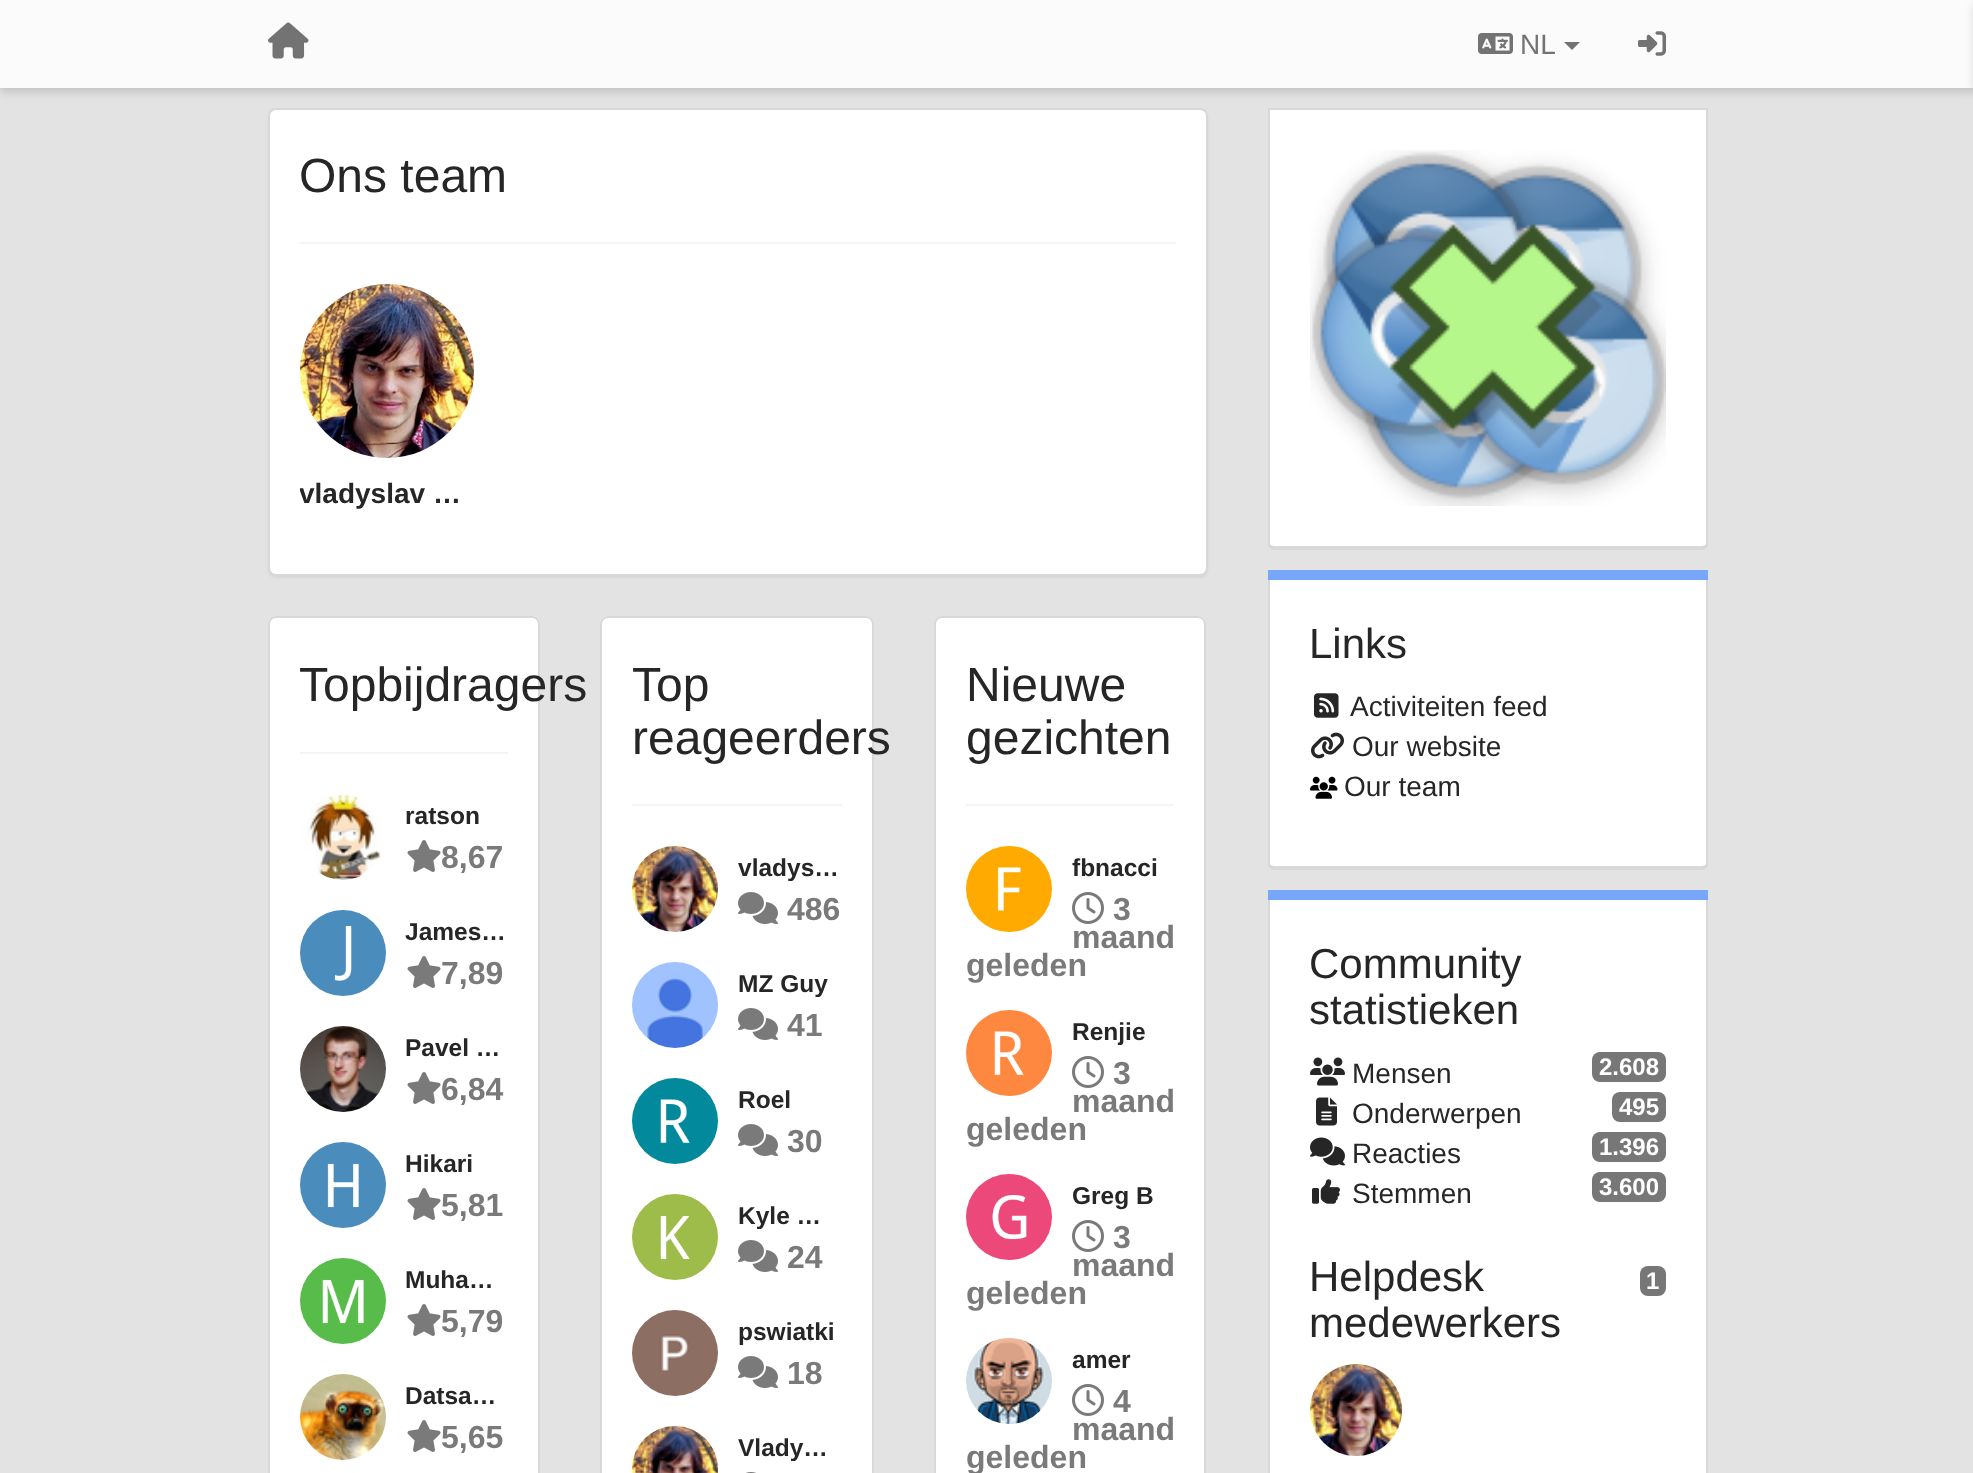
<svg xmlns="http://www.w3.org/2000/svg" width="1973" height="1473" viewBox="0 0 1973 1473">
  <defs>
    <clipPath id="clip1"><path d="M300 474h174v36H300z"/></clipPath>
  </defs>
  <rect width="100%" height="100%" fill="#e3e3e3"/>
  <path d="M0 4h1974v88H0z" fill="#00000026" filter="blur(4px)"/>
  <path d="M0 0h1973v88H0z" fill="#fbfbfb"/>
  <image x="268" y="22" width="41" height="37" href="img/1.png"/>
  <image x="1478" y="33" width="35" height="21" href="img/2.png"/>
  <path d="M1564 42H1580L1572 50Z" fill="#737373"/>
  <image x="1638" y="31" width="28" height="25" href="img/3.png"/>
  <path d="M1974 4h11v88H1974z" fill="#00000026" filter="blur(4px)"/>
  <rect x="268" y="110" width="940" height="468" rx="8" fill="#0000000d" filter="blur(1px)"/>
  <rect x="269" y="109" width="938" height="466" rx="7" fill="#fff" stroke="#d8d8d8" stroke-width="2"/>
  <path d="M300 242h876v2H300z" fill="#f5f5f5"/>
  <image x="300" y="284" width="174" height="174" href="img/4.png"/>
  <path d="M276 616H532C536.5 616 540 619.5 540 624V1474H268V624C268 619.5 271.5 616 276 616Z" fill="#fff"/>
  <rect x="269" y="617" width="270" height="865" rx="7" fill="none" stroke="#d8d8d8" stroke-width="2"/>
  <path d="M300 752h208v2H300z" fill="#f5f5f5"/>
  <image x="300" y="794" width="81" height="86" href="img/5.png"/>
  <image x="407" y="840" width="34" height="32" href="img/6.png"/>
  <circle cx="343" cy="953" r="43" fill="#4a8dbc"/>
  <image x="334" y="926" width="18" height="55" href="img/7.png"/>
  <image x="407" y="956" width="34" height="32" href="img/6.png"/>
  <image x="300" y="1026" width="86" height="86" href="img/8.png"/>
  <image x="407" y="1072" width="34" height="32" href="img/6.png"/>
  <circle cx="343" cy="1185" r="43" fill="#4a8dbc"/>
  <image x="327" y="1163" width="32" height="45" href="img/9.png"/>
  <image x="407" y="1188" width="34" height="32" href="img/6.png"/>
  <circle cx="343" cy="1301" r="43" fill="#58bc4a"/>
  <image x="322" y="1279" width="42" height="45" href="img/10.png"/>
  <image x="407" y="1304" width="34" height="32" href="img/6.png"/>
  <image x="300" y="1374" width="86" height="86" href="img/11.png"/>
  <image x="407" y="1420" width="34" height="32" href="img/6.png"/>
  <path d="M608 616H866C870.5 616 874 619.5 874 624V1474H600V624C600 619.5 603.5 616 608 616Z" fill="#fff"/>
  <rect x="601" y="617" width="272" height="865" rx="7" fill="none" stroke="#d8d8d8" stroke-width="2"/>
  <path d="M632 804h210v2H632z" fill="#f5f5f5"/>
  <image x="632" y="846" width="86" height="86" href="img/12.png"/>
  <image x="738" y="892" width="40" height="32" href="img/13.png"/>
  <image x="632" y="962" width="86" height="86" href="img/14.png"/>
  <image x="738" y="1008" width="40" height="32" href="img/13.png"/>
  <circle cx="675" cy="1121" r="43" fill="#03899c"/>
  <image x="660" y="1099" width="30" height="45" href="img/15.png"/>
  <image x="738" y="1124" width="40" height="32" href="img/13.png"/>
  <circle cx="675" cy="1237" r="43" fill="#9dbc4a"/>
  <image x="660" y="1215" width="30" height="45" href="img/16.png"/>
  <image x="738" y="1240" width="40" height="32" href="img/13.png"/>
  <image x="632" y="1310" width="86" height="86" href="img/17.png"/>
  <image x="738" y="1356" width="40" height="32" href="img/13.png"/>
  <image x="632" y="1426" width="86" height="47" href="img/18.png"/>
  <image x="746" y="1472" width="10" height="1" href="img/19.png"/>
  <path d="M942 616H1198C1202.5 616 1206 619.5 1206 624V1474H934V624C934 619.5 937.5 616 942 616Z" fill="#fff"/>
  <rect x="935" y="617" width="270" height="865" rx="7" fill="none" stroke="#d8d8d8" stroke-width="2"/>
  <path d="M966 804h208v2H966z" fill="#f5f5f5"/>
  <circle cx="1009" cy="889" r="43" fill="#fa0"/>
  <image x="997" y="867" width="24" height="44" href="img/20.png"/>
  <image x="1072" y="892" width="32" height="32" href="img/21.png"/>
  <circle cx="1009" cy="1053" r="43" fill="#ff8841"/>
  <image x="994" y="1031" width="30" height="45" href="img/22.png"/>
  <image x="1072" y="1056" width="32" height="32" href="img/21.png"/>
  <circle cx="1009" cy="1217" r="43" fill="#ec4879"/>
  <image x="992" y="1195" width="35" height="45" href="img/23.png"/>
  <image x="1072" y="1220" width="32" height="32" href="img/21.png"/>
  <image x="966" y="1338" width="86" height="86" href="img/24.png"/>
  <image x="1072" y="1384" width="32" height="32" href="img/21.png"/>
  <path d="M1268 108h440v2H1268z" fill="#d8d8d8"/>
  <path d="M1270 110H1706V544C1706 545 1704 546 1702 546H1274C1272 546 1270 545 1270 544Z" fill="#fff"/>
  <path d="M1268 110H1708V544C1708 547 1705 550 1702 550H1274C1271 550 1268 547 1268 544ZM1270 110H1706V544C1706 545 1704 546 1702 546H1274C1272 546 1270 545 1270 544Z" fill="#d8d8d8" fill-rule="evenodd"/>
  <image x="1310" y="150" width="356" height="356" href="img/25.png"/>
  <path d="M1268 570h440v10H1268z" fill="#76a7fa"/>
  <path d="M1270 580H1706V864C1706 865 1704 866 1702 866H1274C1272 866 1270 865 1270 864Z" fill="#fff"/>
  <path d="M1268 580H1708V864C1708 867 1705 870 1702 870H1274C1271 870 1268 867 1268 864ZM1270 580H1706V864C1706 865 1704 866 1702 866H1274C1272 866 1270 865 1270 864Z" fill="#d8d8d8" fill-rule="evenodd"/>
  <image x="1314" y="693" width="25" height="25" href="img/26.png"/>
  <image x="1311" y="732" width="33" height="27" href="img/27.png"/>
  <image x="1310" y="776" width="28" height="23" href="img/28.png"/>
  <path d="M1268 890h440v10H1268z" fill="#76a7fa"/>
  <path d="M1270 900H1706V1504C1706 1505 1704 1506 1702 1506H1274C1272 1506 1270 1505 1270 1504Z" fill="#fff"/>
  <path d="M1268 900H1708V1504C1708 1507 1705 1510 1702 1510H1274C1271 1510 1268 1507 1268 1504ZM1270 900H1706V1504C1706 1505 1704 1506 1702 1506H1274C1272 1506 1270 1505 1270 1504Z" fill="#d8d8d8" fill-rule="evenodd"/>
  <image x="1310" y="1057" width="35" height="29" href="img/29.png"/>
  <rect x="1592" y="1052" width="74" height="30" rx="8" fill="#777"/>
  <image x="1316" y="1097" width="21" height="29" href="img/30.png"/>
  <rect x="1612" y="1092" width="54" height="30" rx="8" fill="#777"/>
  <image x="1310" y="1137" width="35" height="29" href="img/31.png"/>
  <rect x="1592" y="1132" width="74" height="30" rx="8" fill="#777"/>
  <image x="1312" y="1179" width="28" height="25" href="img/32.png"/>
  <rect x="1592" y="1172" width="74" height="30" rx="8" fill="#777"/>
  <rect x="1640" y="1266" width="26" height="30" rx="8" fill="#777"/>
  <image x="1310" y="1364" width="92" height="92" href="img/33.png"/>
  <text x="1520" y="54" font-family="Liberation Sans" font-size="28" fill="#737373">NL</text>
  <text x="299" y="192" font-family="Liberation Sans" font-size="48" fill="#262626">Ons team</text>
  <g clip-path="url(#clip1)">
    <text x="299" y="503" font-family="Liberation Sans" font-size="28" font-weight="bold" fill="#262626">vladyslav …</text>
  </g>
  <text x="299" y="701" font-family="Liberation Sans" font-size="48" fill="#262626">Topbijdragers</text>
  <text x="405" y="824" font-family="Liberation Sans" font-size="24.5" font-weight="bold" fill="#262626">ratson</text>
  <text x="441" y="868" font-family="Liberation Sans" font-size="32" font-weight="bold" fill="#7a7a7a">8,67</text>
  <text x="405" y="940" font-family="Liberation Sans" font-size="24.5" font-weight="bold" fill="#262626">James…</text>
  <text x="441" y="984" font-family="Liberation Sans" font-size="32" font-weight="bold" fill="#7a7a7a">7,89</text>
  <text x="405" y="1056" font-family="Liberation Sans" font-size="24.5" font-weight="bold" fill="#262626">Pavel …</text>
  <text x="441" y="1100" font-family="Liberation Sans" font-size="32" font-weight="bold" fill="#7a7a7a">6,84</text>
  <text x="405" y="1172" font-family="Liberation Sans" font-size="24.5" font-weight="bold" fill="#262626">Hikari</text>
  <text x="441" y="1216" font-family="Liberation Sans" font-size="32" font-weight="bold" fill="#7a7a7a">5,81</text>
  <text x="405" y="1288" font-family="Liberation Sans" font-size="24.5" font-weight="bold" fill="#262626">Muha…</text>
  <text x="441" y="1332" font-family="Liberation Sans" font-size="32" font-weight="bold" fill="#7a7a7a">5,79</text>
  <text x="405" y="1404" font-family="Liberation Sans" font-size="24.5" font-weight="bold" fill="#262626">Datsa…</text>
  <text x="441" y="1448" font-family="Liberation Sans" font-size="32" font-weight="bold" fill="#7a7a7a">5,65</text>
  <g font-family="Liberation Sans" font-size="48" fill="#262626">
    <text x="632" y="701">Top</text>
    <text x="632" y="754">reageerders</text>
  </g>
  <text x="738" y="876" font-family="Liberation Sans" font-size="24.5" font-weight="bold" fill="#262626">vladys…</text>
  <text x="787" y="920" font-family="Liberation Sans" font-size="32" font-weight="bold" fill="#7a7a7a">486</text>
  <text x="738" y="992" font-family="Liberation Sans" font-size="24.5" font-weight="bold" fill="#262626">MZ Guy</text>
  <text x="787" y="1036" font-family="Liberation Sans" font-size="32" font-weight="bold" fill="#7a7a7a">41</text>
  <text x="738" y="1108" font-family="Liberation Sans" font-size="24.5" font-weight="bold" fill="#262626">Roel</text>
  <text x="787" y="1152" font-family="Liberation Sans" font-size="32" font-weight="bold" fill="#7a7a7a">30</text>
  <text x="738" y="1224" font-family="Liberation Sans" font-size="24.5" font-weight="bold" fill="#262626">Kyle …</text>
  <text x="787" y="1268" font-family="Liberation Sans" font-size="32" font-weight="bold" fill="#7a7a7a">24</text>
  <text x="738" y="1340" font-family="Liberation Sans" font-size="24.5" font-weight="bold" fill="#262626">pswiatki</text>
  <text x="787" y="1384" font-family="Liberation Sans" font-size="32" font-weight="bold" fill="#7a7a7a">18</text>
  <text x="738" y="1456" font-family="Liberation Sans" font-size="24.5" font-weight="bold" fill="#262626">Vlady…</text>
  <g font-family="Liberation Sans" font-size="48" fill="#262626">
    <text x="966" y="701">Nieuwe</text>
    <text x="966" y="754">gezichten</text>
  </g>
  <text x="1072" y="876" font-family="Liberation Sans" font-size="24.5" font-weight="bold" fill="#262626">fbnacci</text>
  <g font-family="Liberation Sans" font-size="32" font-weight="bold" fill="#7a7a7a">
    <text x="1113" y="920">3</text>
    <text x="1072" y="948">maand</text>
    <text x="966" y="976">geleden</text>
  </g>
  <text x="1072" y="1040" font-family="Liberation Sans" font-size="24.5" font-weight="bold" fill="#262626">Renjie</text>
  <g font-family="Liberation Sans" font-size="32" font-weight="bold" fill="#7a7a7a">
    <text x="1113" y="1084">3</text>
    <text x="1072" y="1112">maand</text>
    <text x="966" y="1140">geleden</text>
  </g>
  <text x="1072" y="1204" font-family="Liberation Sans" font-size="24.5" font-weight="bold" fill="#262626">Greg B</text>
  <g font-family="Liberation Sans" font-size="32" font-weight="bold" fill="#7a7a7a">
    <text x="1113" y="1248">3</text>
    <text x="1072" y="1276">maand</text>
    <text x="966" y="1304">geleden</text>
  </g>
  <text x="1072" y="1368" font-family="Liberation Sans" font-size="24.5" font-weight="bold" fill="#262626">amer</text>
  <g font-family="Liberation Sans" font-size="32" font-weight="bold" fill="#7a7a7a">
    <text x="1113" y="1412">4</text>
    <text x="1072" y="1440">maand</text>
    <text x="966" y="1468">geleden</text>
  </g>
  <text x="1309" y="658" font-family="Liberation Sans" font-size="42" fill="#262626">Links</text>
  <g font-family="Liberation Sans" font-size="28" fill="#262626">
    <text x="1350" y="716">Activiteiten feed</text>
    <text x="1352" y="756">Our website</text>
    <text x="1344" y="796">Our team</text>
  </g>
  <g font-family="Liberation Sans" font-size="42" fill="#262626">
    <text x="1309" y="978">Community</text>
    <text x="1309" y="1024">statistieken</text>
  </g>
  <text x="1352" y="1083" font-family="Liberation Sans" font-size="28" fill="#262626">Mensen</text>
  <text x="1599" y="1075" font-family="Liberation Sans" font-size="24" font-weight="bold" fill="#fff">2.608</text>
  <text x="1352" y="1123" font-family="Liberation Sans" font-size="28" fill="#262626">Onderwerpen</text>
  <text x="1619" y="1115" font-family="Liberation Sans" font-size="24" font-weight="bold" fill="#fff">495</text>
  <text x="1352" y="1163" font-family="Liberation Sans" font-size="28" fill="#262626">Reacties</text>
  <text x="1599" y="1155" font-family="Liberation Sans" font-size="24" font-weight="bold" fill="#fff">1.396</text>
  <text x="1352" y="1203" font-family="Liberation Sans" font-size="28" fill="#262626">Stemmen</text>
  <text x="1599" y="1195" font-family="Liberation Sans" font-size="24" font-weight="bold" fill="#fff">3.600</text>
  <text x="1309" y="1291" font-family="Liberation Sans" font-size="42" fill="#262626">Helpdesk</text>
  <text x="1646" y="1289" font-family="Liberation Sans" font-size="24" font-weight="bold" fill="#fff">1</text>
  <text x="1309" y="1337" font-family="Liberation Sans" font-size="42" fill="#262626">medewerkers</text>
</svg>
